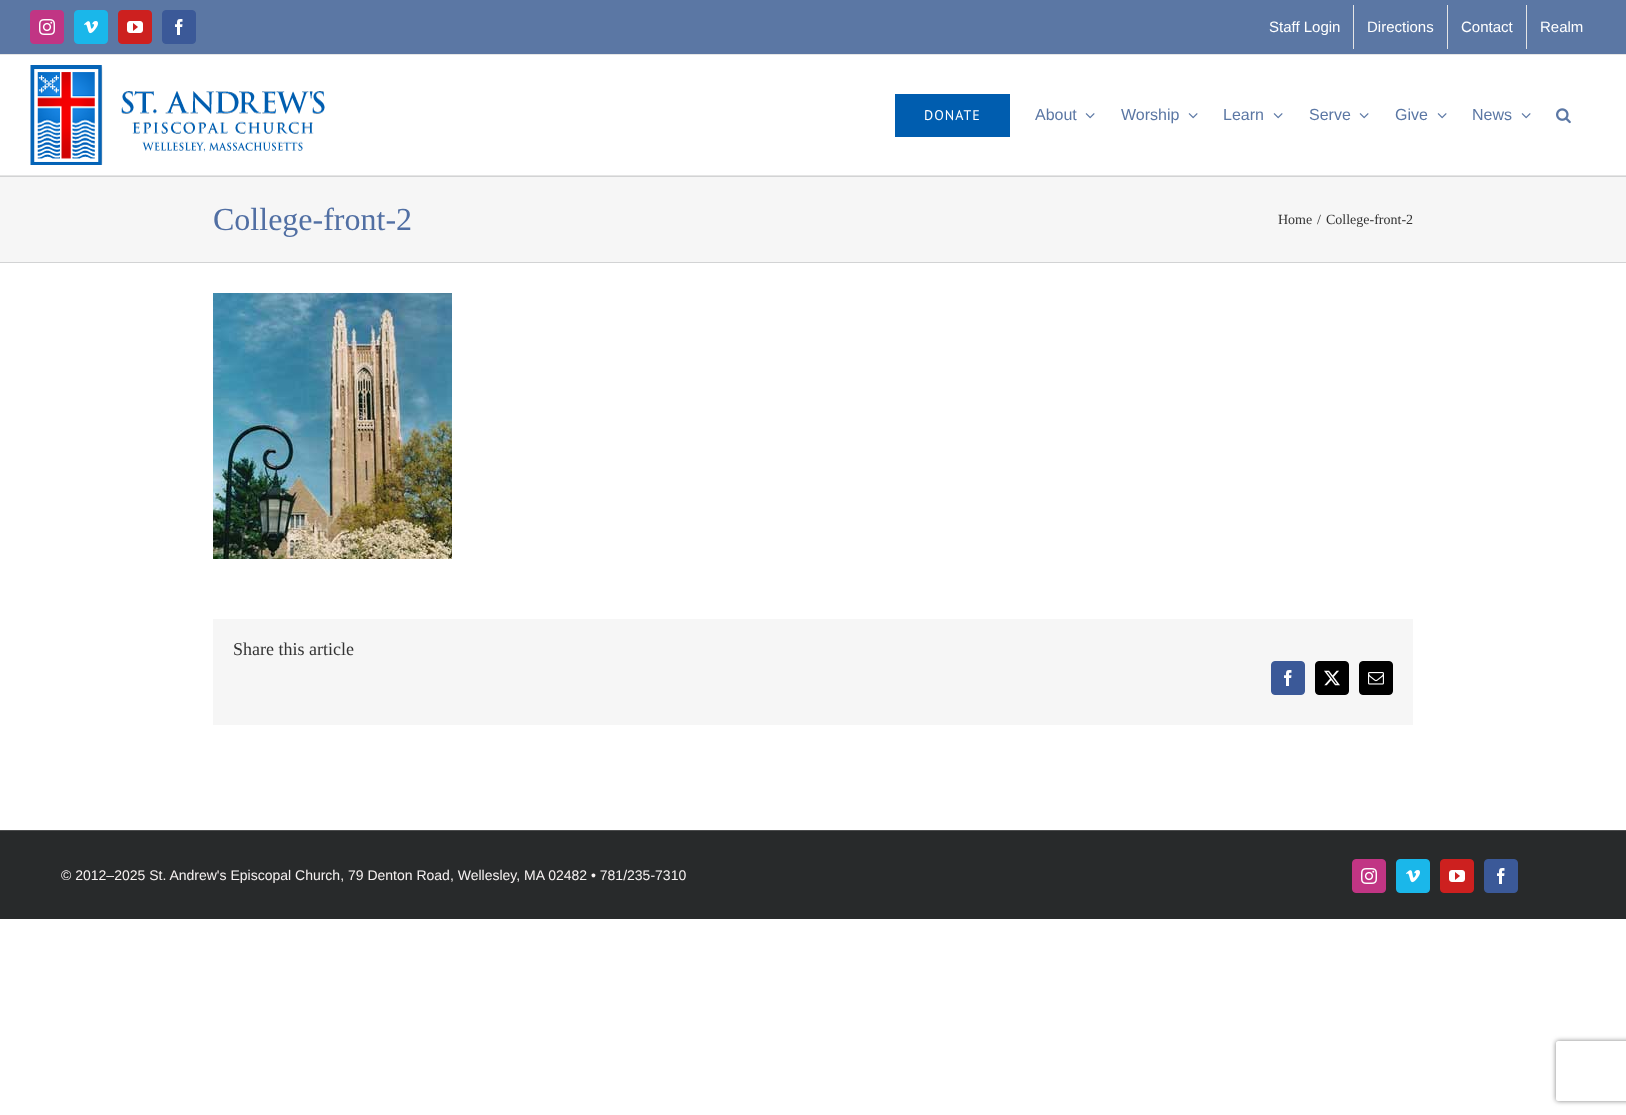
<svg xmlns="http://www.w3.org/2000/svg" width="1626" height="1115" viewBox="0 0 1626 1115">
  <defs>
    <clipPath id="clip1"><path d="M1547 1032H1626V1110H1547ZM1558 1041H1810C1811 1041 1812 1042 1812 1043V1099C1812 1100 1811 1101 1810 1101H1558C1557 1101 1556 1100 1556 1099V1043C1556 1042 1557 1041 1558 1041Z" clip-rule="evenodd"/></clipPath>
  </defs>
  <rect width="100%" height="100%" fill="#fff"/>
  <path d="M0 0h1626v54H0z" fill="#5b77a4"/>
  <path d="M0 54h1626v1H0z" fill="#e5e5e5"/>
  <rect x="30.5" y="10.5" width="33" height="33" rx="3.5" fill="#c13584" stroke="#c13584"/>
  <image x="39" y="19" width="16" height="16" href="img/1.png"/>
  <rect x="74.5" y="10.5" width="33" height="33" rx="3.5" fill="#1ab7ea" stroke="#1ab7ea"/>
  <image x="84" y="21" width="14" height="13" href="img/2.png"/>
  <rect x="118.5" y="10.5" width="33" height="33" rx="3.5" fill="#cd201f" stroke="#cd201f"/>
  <image x="127" y="21" width="16" height="12" href="img/3.png"/>
  <rect x="162.5" y="10.5" width="33" height="33" rx="3.5" fill="#3b5998" stroke="#3b5998"/>
  <image x="175" y="19" width="8" height="16" href="img/4.png"/>
  <path d="M1353 5h1v44H1353z" fill="#e5e5e5"/>
  <path d="M1447 5h1v44H1447z" fill="#e5e5e5"/>
  <path d="M1526 5h1v44H1526z" fill="#e5e5e5"/>
  <path d="M0 175h1626v1H0z" fill="#e5e5e5"/>
  <image x="30" y="65" width="295" height="100" href="img/5.png"/>
  <path d="M895 94h115v43H895z" fill="#005daf"/>
  <image x="1085" y="113" width="10" height="6" href="img/6.png"/>
  <image x="1188" y="113" width="10" height="6" href="img/6.png"/>
  <image x="1273" y="113" width="10" height="6" href="img/6.png"/>
  <image x="1359" y="113" width="10" height="6" href="img/6.png"/>
  <image x="1437" y="113" width="10" height="6" href="img/6.png"/>
  <image x="1521" y="113" width="10" height="6" href="img/6.png"/>
  <image x="1556" y="108" width="15" height="16" href="img/7.png"/>
  <path d="M0 177h1626v85H0z" fill="#f6f6f6"/>
  <path d="M0 176h1626v1H0z" fill="#d2d3d4"/>
  <path d="M0 262h1626v1H0z" fill="#d2d3d4"/>
  <image x="213" y="293" width="239" height="266" href="img/8.png"/>
  <path d="M213 619h1200v106H213z" fill="#f6f6f6"/>
  <rect x="1271.5" y="661.5" width="33" height="33" rx="3.5" fill="#3b5998" stroke="#3b5998"/>
  <image x="1284" y="670" width="8" height="16" href="img/4.png"/>
  <rect x="1315.5" y="661.5" width="33" height="33" rx="3.5" fill="#000" stroke="#000"/>
  <image x="1324" y="670" width="16" height="16" href="img/9.png"/>
  <rect x="1359.5" y="661.5" width="33" height="33" rx="3.5" fill="#000" stroke="#000"/>
  <image x="1368" y="672" width="16" height="13" href="img/10.png"/>
  <path d="M0 831h1626v88H0z" fill="#282a2b"/>
  <path d="M0 830h1626v1H0z" fill="#4b4c4d"/>
  <rect x="1352.5" y="859.5" width="33" height="33" rx="3.5" fill="#c13584" stroke="#c13584"/>
  <image x="1361" y="868" width="16" height="16" href="img/1.png"/>
  <rect x="1396.5" y="859.5" width="33" height="33" rx="3.5" fill="#1ab7ea" stroke="#1ab7ea"/>
  <image x="1406" y="870" width="14" height="13" href="img/2.png"/>
  <rect x="1440.5" y="859.5" width="33" height="33" rx="3.5" fill="#cd201f" stroke="#cd201f"/>
  <image x="1449" y="870" width="16" height="12" href="img/3.png"/>
  <rect x="1484.5" y="859.5" width="33" height="33" rx="3.5" fill="#3b5998" stroke="#3b5998"/>
  <image x="1497" y="868" width="8" height="16" href="img/4.png"/>
  <g clip-path="url(#clip1)">
    <rect x="1556" y="1041" width="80" height="60" rx="2" fill="#808080" filter="blur(2.5px)"/>
  </g>
  <g font-family="Liberation Sans" font-size="15" fill="#fff">
    <text x="1269" y="32">Staff Login</text>
    <text x="1367" y="32">Directions</text>
    <text x="1461" y="32">Contact</text>
    <text x="1540" y="32">Realm</text>
  </g>
  <text x="924" y="120" font-family="PT Sans" font-size="14" letter-spacing="1" fill="#fff">DONATE</text>
  <g font-family="Liberation Sans" font-size="16" fill="#5b77a4">
    <text x="1035" y="120">About</text>
    <text x="1121" y="120">Worship</text>
    <text x="1223" y="120">Learn</text>
    <text x="1309" y="120">Serve</text>
    <text x="1395" y="120">Give</text>
    <text x="1472" y="120">News</text>
  </g>
  <text x="213" y="230" font-family="Liberation Serif" font-size="32" fill="#516fa3">College-front-2</text>
  <g font-family="Liberation Serif" font-size="14" fill="#333">
    <text x="1278" y="224">Home</text>
    <text x="1317" y="224">/</text>
    <text x="1326" y="224">College-front-2</text>
  </g>
  <text x="233" y="655" font-family="Liberation Serif" font-size="18" fill="#333">Share this article</text>
  <text x="61" y="880" font-family="Liberation Sans" font-size="14" fill="#f7f2f2">© 2012–2025 St. Andrew's Episcopal Church, 79 Denton Road, Wellesley, MA 02482 • 781/235-7310</text>
</svg>
